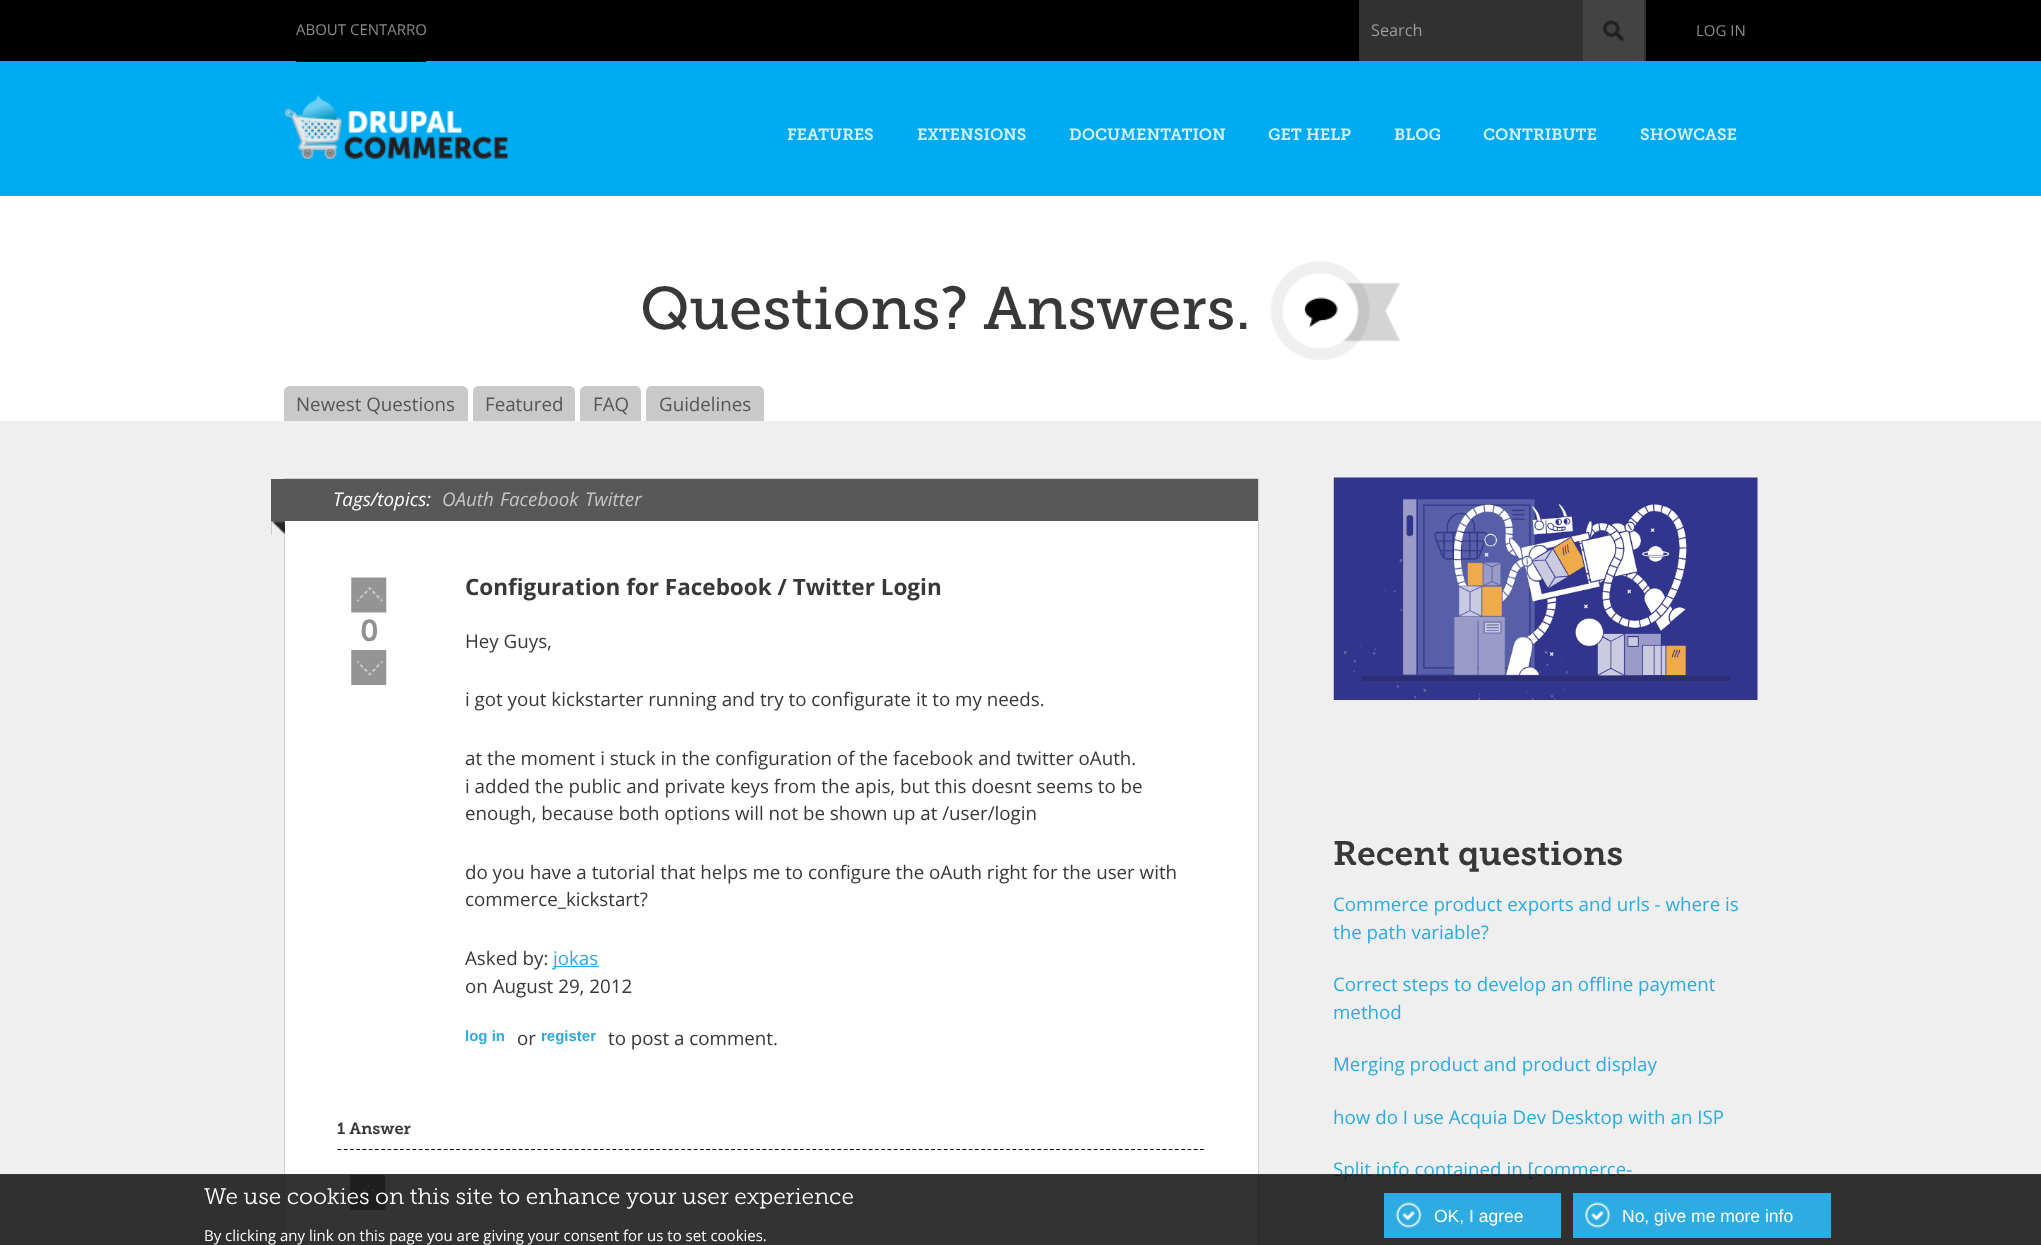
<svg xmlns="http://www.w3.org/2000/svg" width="2041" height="1245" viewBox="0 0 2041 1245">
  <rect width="100%" height="100%" fill="#000"/>
  <path d="M0 61h2041v135H0z" fill="#00abf2"/>
  <path d="M296 61h130v1H296z" fill="#000"/>
  <path d="M1359 0h287v61H1359z" fill="#323131"/>
  <path d="M1583 0h61v61H1583z" fill="#444343"/>
  <image x="1602" y="20" width="22" height="22" href="img/1.png"/>
  <image x="284" y="95" width="224" height="64" href="img/2.png"/>
  <path d="M0 196h2041v225H0z" fill="#fff"/>
  <image x="1270" y="261" width="130" height="99" href="img/3.png"/>
  <path d="M290 386H462C465.5 386 468 388.5 468 392V421H284V392C284 388.5 286.5 386 290 386Z" fill="#c9c9c9"/>
  <path d="M479 386H569C572.5 386 575 388.5 575 392V421H473V392C473 388.5 475.5 386 479 386Z" fill="#c9c9c9"/>
  <path d="M586 386H635C638.5 386 641 388.5 641 392V421H580V392C580 388.5 582.5 386 586 386Z" fill="#c9c9c9"/>
  <path d="M652 386H758C761.5 386 764 388.5 764 392V421H646V392C646 388.5 648.5 386 652 386Z" fill="#c9c9c9"/>
  <path d="M0 421h2041v824H0z" fill="#efefef"/>
  <path d="M285 1078h973v167H285z" fill="#fff"/>
  <path d="M284.5 478.5h974v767H284.5z" fill="none" stroke="#cfcfcf"/>
  <path d="M271 479h987v56H271z" fill="#585858"/>
  <image x="271" y="521" width="14" height="14" href="img/4.png"/>
  <path d="M285 521h973v557H285z" fill="#fff"/>
  <image x="351" y="577" width="36" height="36" href="img/5.png"/>
  <image x="351" y="650" width="36" height="35" href="img/6.png"/>
  <path d="M553 966h46v1H553z" fill="#2aabe2"/>
  <path d="M337.5 1149.5H1204" fill="none" stroke="#000" stroke-width="1.2" stroke-dasharray="3.75 2.5"/>
  <image x="350" y="1175" width="35" height="35" href="img/7.png"/>
  <image x="1333" y="477" width="425" height="223" href="img/8.png"/>
  <text x="296" y="35" font-family="Open Sans" font-size="15" fill="#8b8989">ABOUT CENTARRO</text>
  <text x="1371" y="36" font-family="Open Sans" font-size="16.25" fill="#9d9a9a">Search</text>
  <text x="1696" y="36" font-family="Open Sans" font-size="15" fill="#8b8989">LOG IN</text>
  <g font-family="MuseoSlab" font-size="16.25" font-weight="600" fill="#cff1ff">
    <text x="787" y="140">FEATURES</text>
    <text x="917" y="140">EXTENSIONS</text>
    <text x="1069" y="140">DOCUMENTATION</text>
    <text x="1268" y="140">GET HELP</text>
    <text x="1394" y="140">BLOG</text>
    <text x="1483" y="140">CONTRIBUTE</text>
    <text x="1640" y="140">SHOWCASE</text>
  </g>
  <text x="640" y="329" font-family="MuseoSlab" font-size="60" fill="#383838">Questions? Answers.</text>
  <g font-family="Open Sans" font-size="18.75" fill="#555">
    <text x="296" y="411">Newest Questions</text>
    <text x="485" y="411">Featured</text>
    <text x="593" y="411">FAQ</text>
    <text x="659" y="411">Guidelines</text>
  </g>
  <text x="333" y="506" font-family="Open Sans" font-size="18.75" font-style="italic" fill="#fff">Tags/topics:</text>
  <g font-family="Open Sans" font-size="18.75" font-style="italic" fill="#c6c6c6">
    <text x="442" y="506">OAuth</text>
    <text x="500" y="506">Facebook</text>
    <text x="585" y="506">Twitter</text>
  </g>
  <text x="465" y="595" font-family="Open Sans" font-size="22.5" font-weight="bold" fill="#383838">Configuration for Facebook / Twitter Login</text>
  <text x="360" y="641" font-family="MuseoSlab" font-size="30" font-weight="600" fill="#929090">0</text>
  <g font-family="Open Sans" font-size="18.75" fill="#383838">
    <text x="465" y="648">Hey Guys,</text>
    <text x="465" y="706">i got yout kickstarter running and try to configurate it to my needs.</text>
    <text x="465" y="765">at the moment i stuck in the configuration of the facebook and twitter oAuth.</text>
    <text x="465" y="793">i added the public and private keys from the apis, but this doesnt seems to be</text>
    <text x="465" y="820">enough, because both options will not be shown up at /user/login</text>
    <text x="465" y="879">do you have a tutorial that helps me to configure the oAuth right for the user with</text>
    <text x="465" y="906">commerce_kickstart?</text>
    <text x="465" y="965">Asked by:</text>
  </g>
  <text x="553" y="965" font-family="Open Sans" font-size="18.75" fill="#2aabe2">jokas</text>
  <text x="465" y="993" font-family="Open Sans" font-size="18.75" fill="#383838">on August 29, 2012</text>
  <text x="465" y="1041" font-family="Liberation Sans" font-size="15" font-weight="bold" fill="#2aabe2">log in</text>
  <text x="517" y="1045" font-family="Open Sans" font-size="18.75" fill="#383838">or</text>
  <text x="541" y="1041" font-family="Liberation Sans" font-size="15" font-weight="bold" fill="#2aabe2">register</text>
  <text x="608" y="1045" font-family="Open Sans" font-size="18.75" fill="#383838">to post a comment.</text>
  <text x="337" y="1134" font-family="MuseoSlab" font-size="16.25" font-weight="600" fill="#383838">1 Answer</text>
  <text x="1333" y="865" font-family="MuseoSlab" font-size="33.75" font-weight="600" fill="#383838">Recent questions</text>
  <g font-family="Open Sans" font-size="18.75" fill="#2aabe2">
    <text x="1333" y="911">Commerce product exports and urls - where is</text>
    <text x="1333" y="939">the path variable?</text>
    <text x="1333" y="991">Correct steps to develop an offline payment</text>
    <text x="1333" y="1019">method</text>
    <text x="1333" y="1071">Merging product and product display</text>
    <text x="1333" y="1124">how do I use Acquia Dev Desktop with an ISP</text>
    <text x="1333" y="1176">Split info contained in [commerce-</text>
  </g>
  <path d="M0 1175h2041v70H0z" fill="#000000cc"/>
  <path d="M0 1174h2041v1H0z" fill="#393737"/>
  <text x="204" y="1204" font-family="MuseoSlab" font-size="22.5" font-weight="300" fill="#fff">We use cookies on this site to enhance your user experience</text>
  <text x="204" y="1241" font-family="Open Sans" font-size="15" fill="#fff">By clicking any link on this page you are giving your consent for us to set cookies.</text>
  <path d="M1384 1193h177v45H1384z" fill="#2cace3"/>
  <image x="1396" y="1202" width="26" height="26" href="img/9.png"/>
  <text x="1434" y="1222" font-family="Liberation Sans" font-size="17.5" fill="#fff">OK, I agree</text>
  <path d="M1573 1193h258v45H1573z" fill="#2cace3"/>
  <text x="1622" y="1222" font-family="Liberation Sans" font-size="17.5" fill="#fff">No, give me more info</text>
  <image x="1585" y="1202" width="25" height="26" href="img/10.png"/>
</svg>
